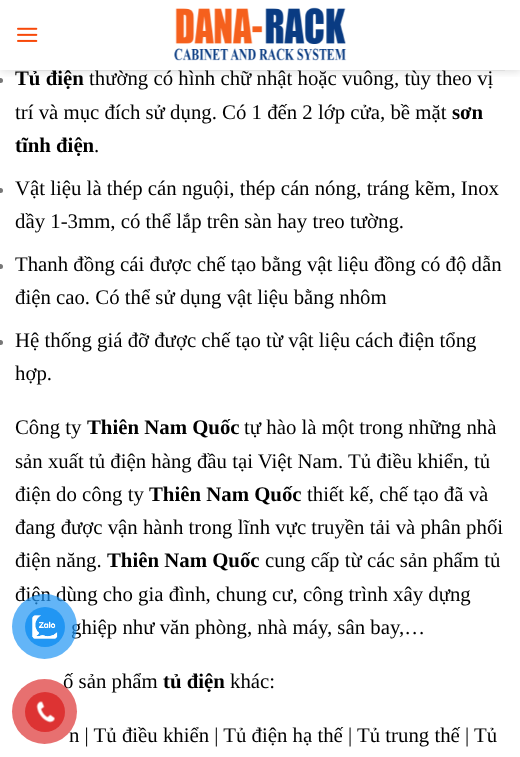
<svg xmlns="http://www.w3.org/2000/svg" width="520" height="757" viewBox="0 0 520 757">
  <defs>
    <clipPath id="clip1"><path d="M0 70h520v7H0z"/></clipPath>
  </defs>
  <rect width="100%" height="100%" fill="#fff"/>
  <circle cx="0.5" cy="80.5" r="2.5" fill="#777"/>
  <g clip-path="url(#clip1)">
    <path d="M1 1h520v70H1z" fill="#00000026" filter="blur(5px)"/>
  </g>
  <image x="17" y="27" width="21" height="15" href="img/1.png"/>
  <image x="174" y="7" width="173" height="54" href="img/2.png"/>
  <path d="M15 70h490v1H15z" fill="#7777771a"/>
  <circle cx="0.5" cy="190.5" r="2.5" fill="#777"/>
  <circle cx="0.5" cy="266.5" r="2.5" fill="#777"/>
  <circle cx="0.5" cy="342.5" r="2.5" fill="#777"/>
  <text x="15" y="85" font-family="Liberation Serif" font-size="20.8" font-weight="bold" fill="#000">Tủ điện</text>
  <g font-family="Liberation Serif" font-size="20.8" fill="#000">
    <text x="89" y="85">thường có hình chữ nhật hoặc vuông, tùy theo vị</text>
    <text x="15" y="119">trí và mục đích sử dụng. Có 1 đến 2 lớp cửa, bề mặt</text>
  </g>
  <g font-family="Liberation Serif" font-size="20.8" font-weight="bold" fill="#000">
    <text x="452" y="119">sơn</text>
    <text x="15" y="152">tĩnh điện</text>
  </g>
  <g font-family="Liberation Serif" font-size="20.8" fill="#000">
    <text x="94" y="152">.</text>
    <text x="15" y="195">Vật liệu là thép cán nguội, thép cán nóng, tráng kẽm, Inox</text>
    <text x="15" y="228">dầy 1-3mm, có thể lắp trên sàn hay treo tường.</text>
    <text x="15" y="271">Thanh đồng cái được chế tạo bằng vật liệu đồng có độ dẫn</text>
    <text x="15" y="304">điện cao. Có thể sử dụng vật liệu bằng nhôm</text>
    <text x="15" y="347">Hệ thống giá đỡ được chế tạo từ vật liệu cách điện tổng</text>
    <text x="15" y="380">hợp.</text>
    <text x="15" y="434">Công ty</text>
  </g>
  <text x="87" y="434" font-family="Liberation Serif" font-size="20.8" font-weight="bold" fill="#000">Thiên Nam Quốc</text>
  <g font-family="Liberation Serif" font-size="20.8" fill="#000">
    <text x="244" y="434">tự hào là một trong những nhà</text>
    <text x="15" y="468">sản xuất tủ điện hàng đầu tại Việt Nam. Tủ điều khiển, tủ</text>
    <text x="15" y="501">điện do công ty</text>
  </g>
  <text x="149" y="501" font-family="Liberation Serif" font-size="20.8" font-weight="bold" fill="#000">Thiên Nam Quốc</text>
  <g font-family="Liberation Serif" font-size="20.8" fill="#000">
    <text x="307" y="501">thiết kế, chế tạo đã và</text>
    <text x="15" y="534">đang được vận hành trong lĩnh vực truyền tải và phân phối</text>
    <text x="15" y="567">điện năng.</text>
  </g>
  <text x="107" y="567" font-family="Liberation Serif" font-size="20.8" font-weight="bold" fill="#000">Thiên Nam Quốc</text>
  <g font-family="Liberation Serif" font-size="20.8" fill="#000">
    <text x="265" y="567">cung cấp từ các sản phẩm tủ</text>
    <text x="15" y="601">điện dùng cho gia đình, chung cư, công trình xây dựng</text>
    <text x="71" y="634">ghiệp như văn phòng, nhà máy, sân bay,…</text>
    <text x="63" y="688">ố sản phẩm</text>
  </g>
  <text x="163" y="688" font-family="Liberation Serif" font-size="20.8" font-weight="bold" fill="#000">tủ điện</text>
  <g font-family="Liberation Serif" font-size="20.8" fill="#000">
    <text x="230" y="688">khác:</text>
    <text x="69" y="742">n | Tủ điều khiển | Tủ điện hạ thế | Tủ trung thế | Tủ</text>
  </g>
  <circle cx="44.5" cy="626.5" r="32.5" fill="#2196f3b3"/>
  <circle cx="45" cy="627" r="20" fill="#2196f3"/>
  <image x="32" y="615" width="26" height="24" href="img/3.png"/>
  <circle cx="44.5" cy="711.5" r="32.5" fill="#dd3333b3"/>
  <circle cx="45" cy="712" r="20" fill="#d33"/>
  <image x="36" y="701" width="19" height="22" href="img/4.png"/>
</svg>
